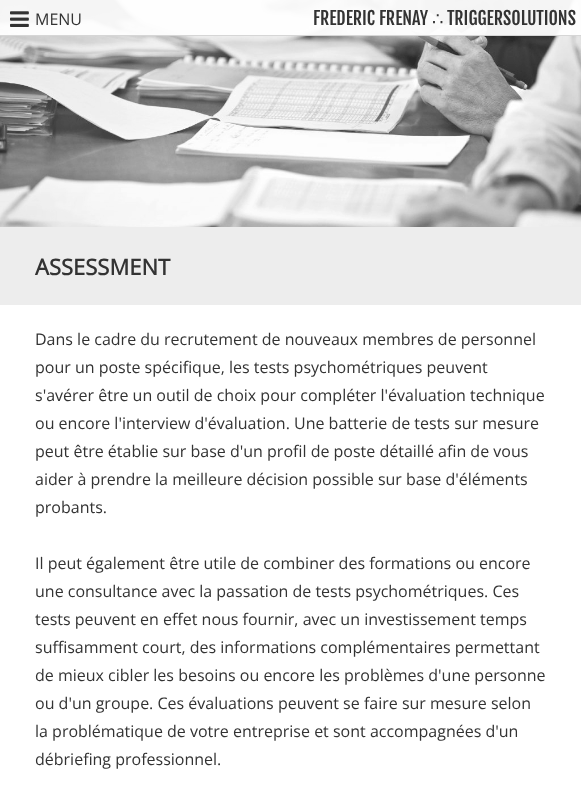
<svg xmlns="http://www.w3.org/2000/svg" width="581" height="805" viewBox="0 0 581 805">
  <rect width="100%" height="100%" fill="#fff"/>
  <image x="0" y="0" width="581" height="227" href="img/2.png"/>
  <path d="M0 0h581v35H0z" fill="#fffffff2"/>
  <path d="M0 35h581v1H0z" fill="#d6d6d6"/>
  <image x="10" y="11" width="19" height="16" href="img/1.png"/>
  <path d="M0 227h581v78H0z" fill="#ededed"/>
  <text x="35" y="25" font-family="Open Sans" font-size="16" fill="#333">MENU</text>
  <text x="313" y="25" font-family="Fjalla One" font-size="18" fill="#333">FREDERIC FRENAY</text>
  <text x="432" y="25" font-family="DejaVu Sans" font-size="18" fill="#333">∴</text>
  <text x="447" y="25" font-family="Fjalla One" font-size="18" fill="#333">TRIGGERSOLUTIONS</text>
  <text x="35" y="275" font-family="Open Sans" font-size="22" font-weight="bold" fill="#333">ASSESSMENT</text>
  <g font-family="Open Sans" font-size="16" fill="#333">
    <text x="35" y="345">Dans le cadre du recrutement de nouveaux membres de personnel</text>
    <text x="35" y="373">pour un poste spécifique, les tests psychométriques peuvent</text>
    <text x="35" y="401">s'avérer être un outil de choix pour compléter l'évaluation technique</text>
    <text x="35" y="429">ou encore l'interview d'évaluation. Une batterie de tests sur mesure</text>
    <text x="35" y="457">peut être établie sur base d'un profil de poste détaillé afin de vous</text>
    <text x="35" y="485">aider à prendre la meilleure décision possible sur base d'éléments</text>
    <text x="35" y="513">probants.</text>
    <text x="35" y="569">Il peut également être utile de combiner des formations ou encore</text>
    <text x="35" y="597">une consultance avec la passation de tests psychométriques. Ces</text>
    <text x="35" y="625">tests peuvent en effet nous fournir, avec un investissement temps</text>
    <text x="35" y="653">suffisamment court, des informations complémentaires permettant</text>
    <text x="35" y="681">de mieux cibler les besoins ou encore les problèmes d'une personne</text>
    <text x="35" y="709">ou d'un groupe. Ces évaluations peuvent se faire sur mesure selon</text>
    <text x="35" y="737">la problématique de votre entreprise et sont accompagnées d'un</text>
    <text x="35" y="765">débriefing professionnel.</text>
  </g>
</svg>
